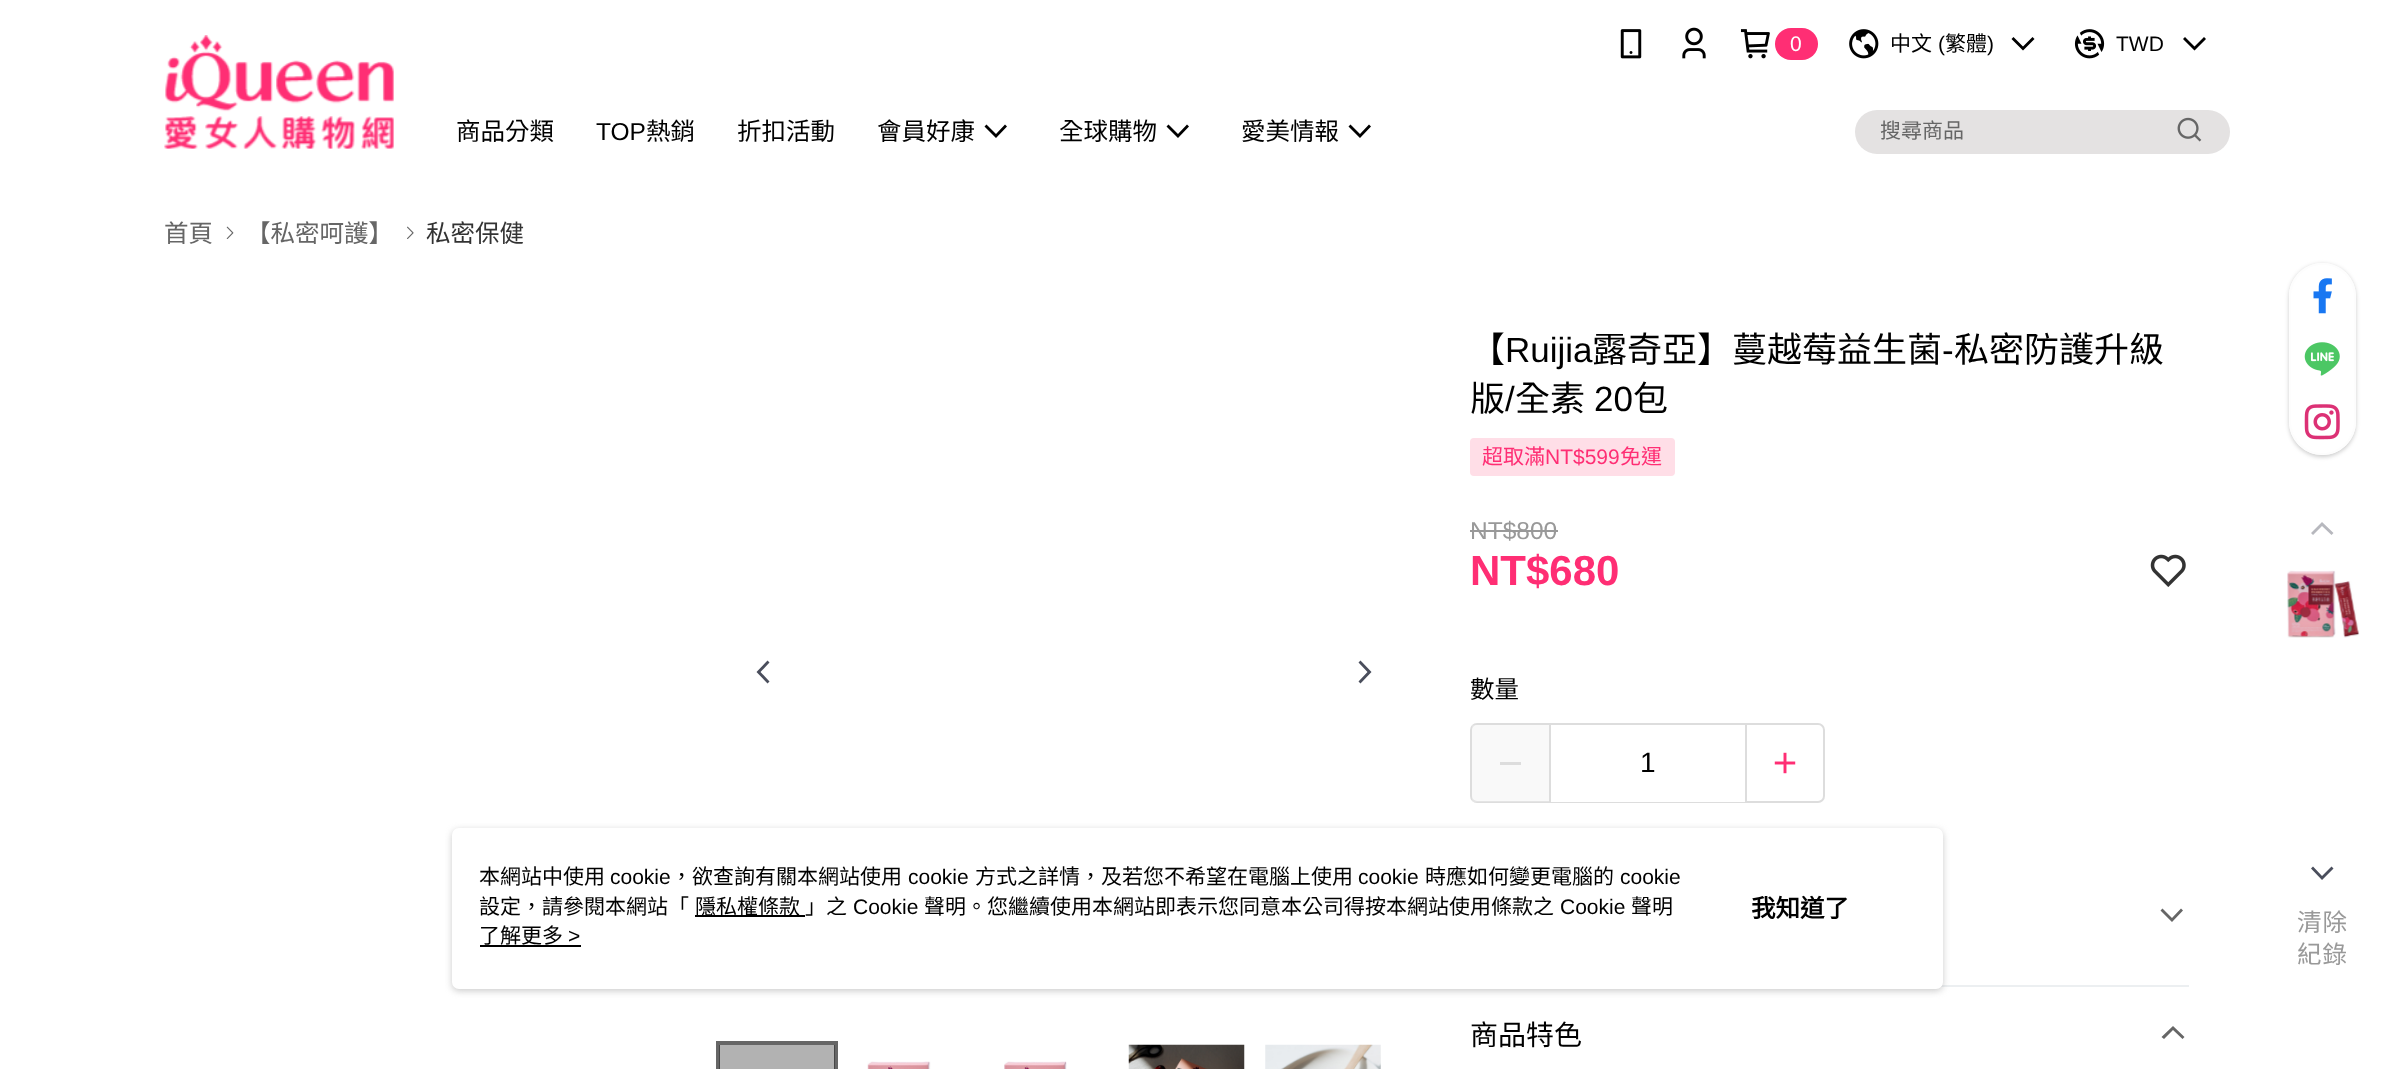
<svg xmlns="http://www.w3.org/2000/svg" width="2392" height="1069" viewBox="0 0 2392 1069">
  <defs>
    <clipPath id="clip1"><path d="M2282 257H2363V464H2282ZM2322.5 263C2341 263 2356 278 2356 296.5V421.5C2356 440 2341 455 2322.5 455C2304 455 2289 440 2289 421.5V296.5C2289 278 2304 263 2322.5 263Z" clip-rule="evenodd"/></clipPath>
  </defs>
  <rect width="100%" height="100%" fill="#fff"/>
  <image x="164" y="35" width="230" height="114" href="img/1.png"/>
  <image x="1620" y="29" width="22" height="30" href="img/2.png"/>
  <image x="1682" y="27" width="24" height="32" href="img/3.png"/>
  <image x="1740" y="29" width="30" height="30" href="img/4.png"/>
  <rect x="1775" y="28" width="43" height="32" rx="16" fill="#ff2e74"/>
  <image x="1849" y="29" width="30" height="30" href="img/5.png"/>
  <path d="M2013.5 37L2011.5 39L2023 50.5L2034.5 39L2032.5 37L2023 46.5Z" fill="#000"/>
  <image x="2074" y="29" width="31" height="30" href="img/6.png"/>
  <path d="M2185 37L2183 39L2194.5 50.5L2206 39L2204 37L2194.5 46.5Z" fill="#000"/>
  <path d="M986.5 124.5L984.5 126.5L996 138L1007 126.5L1005 124.5L996 134Z" fill="#000"/>
  <path d="M1168.5 124.5L1166.5 126.5L1178 138L1189 126.5L1187 124.5L1178 134Z" fill="#000"/>
  <path d="M1350.5 124.5L1348.5 126.5L1360 138L1371 126.5L1369 124.5L1360 134Z" fill="#000"/>
  <rect x="1855" y="110" width="375" height="44" rx="22" fill="#e4e2e2"/>
  <image x="2177" y="117" width="25" height="25" href="img/7.png"/>
  <image x="226" y="226" width="8" height="13" href="img/8.png"/>
  <image x="407" y="226" width="7" height="13" href="img/9.png"/>
  <path d="M769.5 662.5L767.5 660.5L756.5 672L767.5 683.5L769.5 681.5L760.5 672Z" fill="#4a4e5c"/>
  <path d="M1358.5 681.5L1360.5 683.5L1371.5 672L1360.5 660.5L1358.5 662.5L1367.5 672Z" fill="#4a4e5c"/>
  <path d="M718 1043h118v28H718z" fill="none" stroke="#666" stroke-width="4"/>
  <path d="M719 1045h116v24H719z" fill="#0000004d"/>
  <image x="867" y="1061" width="64" height="8" href="img/10.png"/>
  <image x="1004" y="1061" width="63" height="8" href="img/11.png"/>
  <image x="1128" y="1044" width="117" height="25" href="img/12.png"/>
  <image x="1265" y="1044" width="116" height="25" href="img/13.png"/>
  <rect x="1471" y="439" width="203" height="36" rx="3" fill="#ffdee7" stroke="#ffdee7" stroke-width="2"/>
  <path d="M1470 530h88v2H1470z" fill="#999"/>
  <image x="2150" y="554" width="36" height="33" href="img/14.png"/>
  <rect x="1471" y="724" width="353" height="78" rx="6" fill="none" stroke="#ddd" stroke-width="2"/>
  <path d="M1472 725h77v77H1472z" fill="#f1f1f166"/>
  <path d="M1500 762h21v3H1500z" fill="#ddd"/>
  <path d="M1745 725h2v77H1745z" fill="#ddd"/>
  <path d="M1549 725h2v77H1549z" fill="#ddd"/>
  <path d="M1551 801h194v1H1551z" fill="#fff"/>
  <image x="1774" y="752" width="22" height="22" href="img/15.png"/>
  <path d="M1941 985h248v2H1941z" fill="#eceff1"/>
  <path d="M2162.5 908.5L2160.5 910.5L2172 922L2183 910.5L2181 908.5L2172 918Z" fill="#666"/>
  <path d="M2182.5 1039L2184.5 1037L2173 1026L2161.5 1037L2164 1039L2173 1030Z" fill="#666"/>
  <g clip-path="url(#clip1)">
    <rect x="2289" y="264" width="67" height="193" rx="33.5" fill="#00000033" filter="blur(2px)"/>
  </g>
  <rect x="2290" y="264" width="65" height="190" rx="32.5" fill="#ffffffe6" stroke="#fdfdfd" stroke-width="2"/>
  <image x="2313" y="278" width="19" height="36" href="img/16.png"/>
  <image x="2304" y="342" width="36" height="34" href="img/17.png"/>
  <image x="2304" y="404" width="36" height="36" href="img/18.png"/>
  <path d="M2331.5 535L2333.5 533L2322 522L2311 533L2313 535L2322 526Z" fill="#b7b8be"/>
  <image x="2287" y="570" width="73" height="68" href="img/19.png"/>
  <path d="M2313 866.5L2311 868.5L2322 880L2333.5 868.5L2331.5 866.5L2322 876Z" fill="#4a4e5c"/>
  <rect x="452" y="830" width="1491" height="161" rx="7" fill="#97979780" filter="blur(3.5px)"/>
  <rect x="452" y="828" width="1491" height="161" rx="7" fill="#fff"/>
  <path d="M695 915h110v2H695z" fill="#000"/>
  <path d="M480 945h101v2H480z" fill="#000"/>
  <text x="1790" y="51" font-family="Liberation Sans" font-size="21" fill="#fff">0</text>
  <text x="1890" y="51" font-family="Noto Sans CJK TC" font-size="21" fill="#000">中文</text>
  <text x="1938" y="51" font-family="Liberation Sans" font-size="21" fill="#000">(</text>
  <text x="1945" y="51" font-family="Noto Sans CJK TC" font-size="21" fill="#000">繁體</text>
  <g font-family="Liberation Sans" font-size="21" fill="#000">
    <text x="1987" y="51">)</text>
    <text x="2116" y="51">TWD</text>
  </g>
  <text x="456" y="140" font-family="Noto Sans CJK TC" font-size="24.5" fill="#000">商品分類</text>
  <text x="596" y="140" font-family="Liberation Sans" font-size="24.5" fill="#000">TOP</text>
  <g font-family="Noto Sans CJK TC" font-size="24.5" fill="#000">
    <text x="646" y="140">熱銷</text>
    <text x="737" y="140">折扣活動</text>
    <text x="877" y="140">會員好康</text>
    <text x="1059" y="140">全球購物</text>
    <text x="1241" y="140">愛美情報</text>
  </g>
  <text x="1880" y="138" font-family="Noto Sans CJK TC" font-size="21" fill="#666">搜尋商品</text>
  <g font-family="Noto Sans CJK TC" font-size="24.5" fill="#666">
    <text x="164" y="242">首頁</text>
    <text x="246" y="242">【私密呵護】</text>
  </g>
  <text x="426" y="242" font-family="Noto Sans CJK TC" font-size="24.5" fill="#333">私密保健</text>
  <text x="1470" y="362" font-family="Noto Sans CJK TC" font-size="35" fill="#000">【</text>
  <text x="1505" y="362" font-family="Liberation Sans" font-size="35" fill="#000">Ruijia</text>
  <text x="1592" y="362" font-family="Noto Sans CJK TC" font-size="35" fill="#000">露奇亞】蔓越莓益生菌</text>
  <text x="1942" y="362" font-family="Liberation Sans" font-size="35" fill="#000">-</text>
  <g font-family="Noto Sans CJK TC" font-size="35" fill="#000">
    <text x="1954" y="362">私密防護升級</text>
    <text x="1470" y="411">版</text>
  </g>
  <text x="1505" y="411" font-family="Liberation Sans" font-size="35" fill="#000">/</text>
  <text x="1515" y="411" font-family="Noto Sans CJK TC" font-size="35" fill="#000">全素</text>
  <text x="1594" y="411" font-family="Liberation Sans" font-size="35" fill="#000">20</text>
  <text x="1633" y="411" font-family="Noto Sans CJK TC" font-size="35" fill="#000">包</text>
  <text x="1482" y="464" font-family="Noto Sans CJK TC" font-size="21" fill="#ff2e74">超取滿</text>
  <text x="1545" y="464" font-family="Liberation Sans" font-size="21" fill="#ff2e74">NT$599</text>
  <text x="1620" y="464" font-family="Noto Sans CJK TC" font-size="21" fill="#ff2e74">免運</text>
  <text x="1470" y="539" font-family="Liberation Sans" font-size="24.5" fill="#999">NT$800</text>
  <text x="1470" y="585" font-family="Liberation Sans" font-size="42" font-weight="bold" fill="#ff2e74">NT$680</text>
  <text x="1470" y="698" font-family="Noto Sans CJK TC" font-size="24.5" fill="#000">數量</text>
  <text x="1640" y="772" font-family="Liberation Sans" font-size="28" fill="#000">1</text>
  <text x="1470" y="1045" font-family="Noto Sans CJK TC" font-size="28" fill="#000">商品特色</text>
  <g font-family="Noto Sans CJK TC" font-size="24.5" letter-spacing="1" fill="#999">
    <text x="2297" y="931">清除</text>
    <text x="2297" y="963">紀錄</text>
  </g>
  <text x="479" y="884" font-family="Noto Sans CJK TC" font-size="21" fill="#000">本網站中使用</text>
  <text x="610" y="884" font-family="Liberation Sans" font-size="21" fill="#000">cookie</text>
  <text x="671" y="884" font-family="Noto Sans CJK TC" font-size="21" fill="#000">，欲查詢有關本網站使用</text>
  <text x="908" y="884" font-family="Liberation Sans" font-size="21" fill="#000">cookie</text>
  <text x="975" y="884" font-family="Noto Sans CJK TC" font-size="21" fill="#000">方式之詳情，及若您不希望在電腦上使用</text>
  <text x="1358" y="884" font-family="Liberation Sans" font-size="21" fill="#000">cookie</text>
  <text x="1425" y="884" font-family="Noto Sans CJK TC" font-size="21" fill="#000">時應如何變更電腦的</text>
  <text x="1620" y="884" font-family="Liberation Sans" font-size="21" fill="#000">cookie</text>
  <g font-family="Noto Sans CJK TC" font-size="21" fill="#000">
    <text x="479" y="914">設定，請參閱本網站「</text>
    <text x="695" y="914">隱私權條款</text>
    <text x="805" y="914">」之</text>
  </g>
  <text x="853" y="914" font-family="Liberation Sans" font-size="21" fill="#000">Cookie</text>
  <text x="924" y="914" font-family="Noto Sans CJK TC" font-size="21" fill="#000">聲明。您繼續使用本網站即表示您同意本公司得按本網站使用條款之</text>
  <text x="1560" y="914" font-family="Liberation Sans" font-size="21" fill="#000">Cookie</text>
  <g font-family="Noto Sans CJK TC" font-size="21" fill="#000">
    <text x="1631" y="914">聲明</text>
    <text x="479" y="943">了解更多</text>
  </g>
  <text x="568" y="943" font-family="Liberation Sans" font-size="21" fill="#000">&gt;</text>
  <text x="1751" y="917" font-family="Noto Sans CJK TC" font-size="24.5" font-weight="bold" fill="#000">我知道了</text>
</svg>
